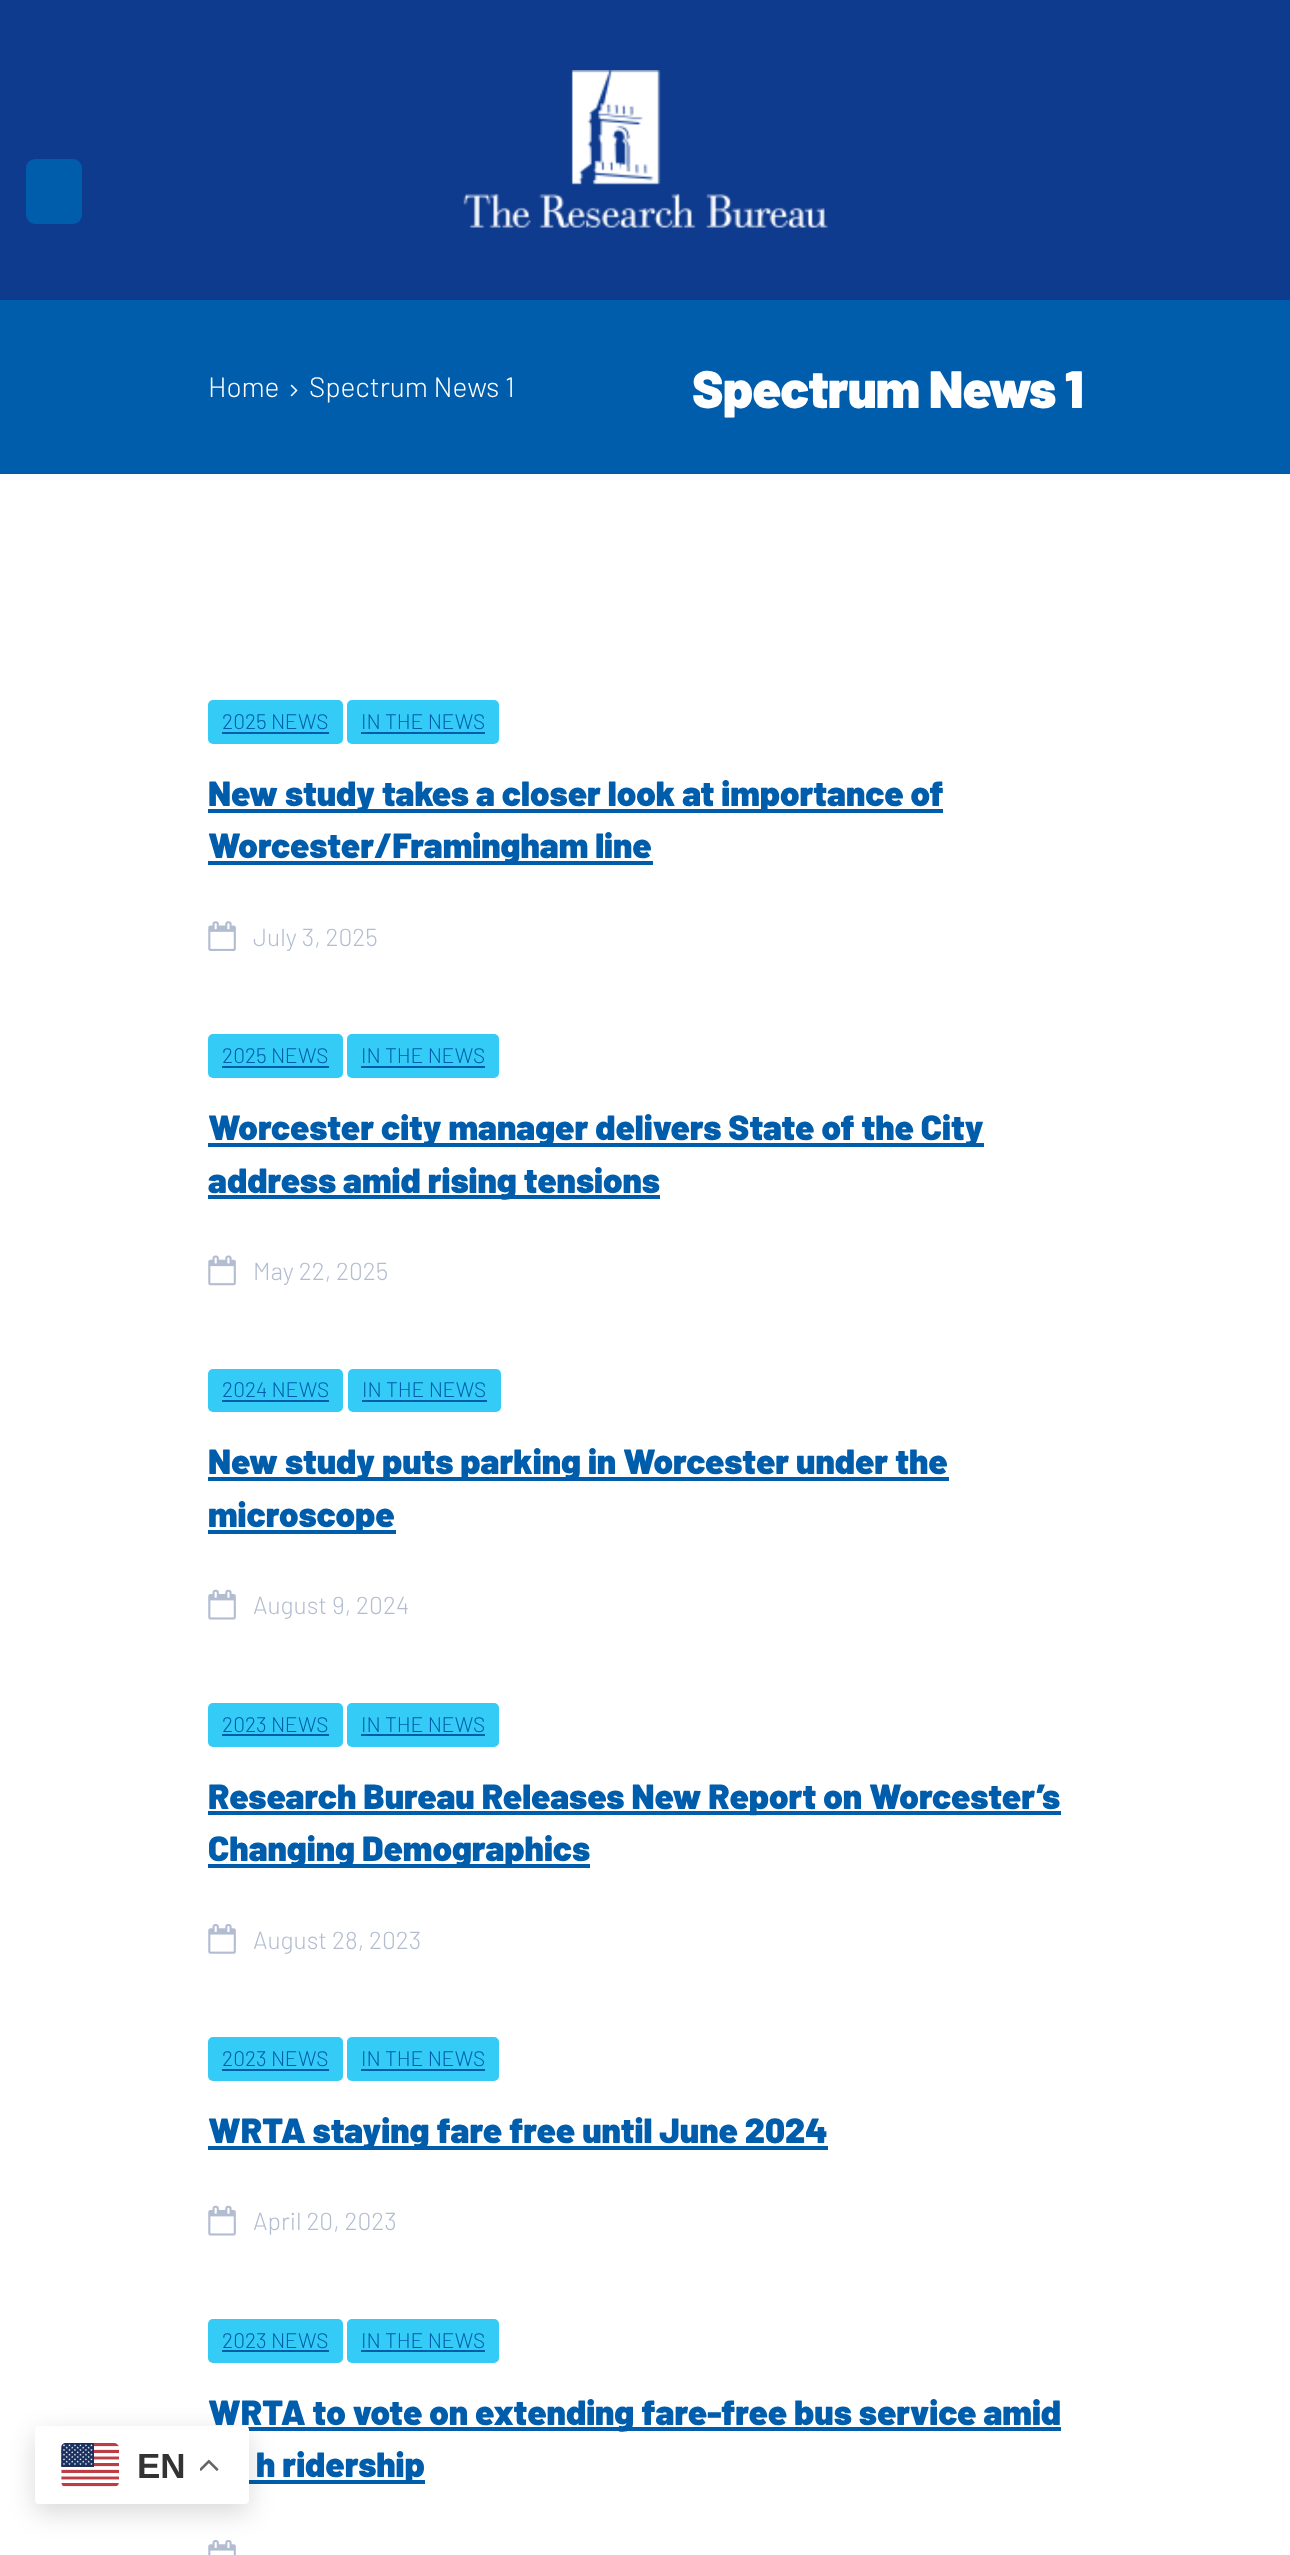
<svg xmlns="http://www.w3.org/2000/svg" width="1290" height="2555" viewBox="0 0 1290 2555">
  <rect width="100%" height="100%" fill="#fff"/>
  <path d="M247 2427h814v4H247z" fill="#005dab"/>
  <path d="M249 2480h176v4H249z" fill="#005dab"/>
  <image x="208" y="2540" width="28" height="15" href="img/9.png"/>
  <rect x="35" y="2434" width="214" height="79" rx="4" fill="#00000026" filter="blur(13px)"/>
  <path d="M0 0h1290v300H0z" fill="#0f3b8f"/>
  <image x="463" y="70" width="365" height="158" href="img/3.png"/>
  <rect x="26" y="159" width="56" height="65" rx="9" fill="#005dab"/>
  <path d="M0 300h1290v174H0z" fill="#005dab"/>
  <image x="290" y="384" width="8" height="13" href="img/4.png"/>
  <rect x="208" y="700" width="135" height="44" rx="5" fill="#34cbf7"/>
  <path d="M222 732h107v2H222z" fill="#005dab"/>
  <rect x="347" y="700" width="152" height="44" rx="5" fill="#34cbf7"/>
  <path d="M361 732h124v2H361z" fill="#005dab"/>
  <path d="M208 809h735v4H208z" fill="#005dab"/>
  <path d="M208 861h445v4H208z" fill="#005dab"/>
  <image x="208" y="921" width="28" height="30" href="img/5.png"/>
  <rect x="208" y="1034" width="135" height="44" rx="5" fill="#34cbf7"/>
  <path d="M222 1066h107v2H222z" fill="#005dab"/>
  <rect x="347" y="1034" width="152" height="44" rx="5" fill="#34cbf7"/>
  <path d="M361 1066h124v2H361z" fill="#005dab"/>
  <path d="M208 1143h776v4H208z" fill="#005dab"/>
  <path d="M208 1195h452v4H208z" fill="#005dab"/>
  <image x="208" y="1255" width="28" height="31" href="img/6.png"/>
  <rect x="208" y="1369" width="135" height="43" rx="5" fill="#34cbf7"/>
  <path d="M222 1400h107v2H222z" fill="#005dab"/>
  <rect x="348" y="1369" width="153" height="43" rx="5" fill="#34cbf7"/>
  <path d="M362 1400h125v2H362z" fill="#005dab"/>
  <path d="M208 1477h741v4H208z" fill="#005dab"/>
  <path d="M208 1530h188v4H208z" fill="#005dab"/>
  <image x="208" y="1589" width="28" height="31" href="img/7.png"/>
  <rect x="208" y="1703" width="135" height="44" rx="5" fill="#34cbf7"/>
  <path d="M222 1734h107v2H222z" fill="#005dab"/>
  <rect x="347" y="1703" width="152" height="44" rx="5" fill="#34cbf7"/>
  <path d="M361 1734h124v2H361z" fill="#005dab"/>
  <path d="M208 1811h853v4H208z" fill="#005dab"/>
  <path d="M208 1864h382v4H208z" fill="#005dab"/>
  <image x="208" y="1924" width="28" height="30" href="img/8.png"/>
  <rect x="208" y="2037" width="135" height="44" rx="5" fill="#34cbf7"/>
  <path d="M222 2069h107v2H222z" fill="#005dab"/>
  <rect x="347" y="2037" width="152" height="44" rx="5" fill="#34cbf7"/>
  <path d="M361 2069h124v2H361z" fill="#005dab"/>
  <path d="M208 2146h620v4H208z" fill="#005dab"/>
  <image x="208" y="2205" width="28" height="31" href="img/7.png"/>
  <rect x="208" y="2319" width="135" height="44" rx="5" fill="#34cbf7"/>
  <path d="M222 2350h107v2H222z" fill="#005dab"/>
  <rect x="347" y="2319" width="152" height="44" rx="5" fill="#34cbf7"/>
  <path d="M361 2350h124v2H361z" fill="#005dab"/>
  <g font-family="Barlow" font-size="28" font-weight="300" fill="#fff">
    <text x="208" y="397">Home</text>
    <text x="309" y="397">Spectrum News 1</text>
  </g>
  <text x="692" y="408" font-family="Barlow" font-size="52.5" font-weight="900" letter-spacing="-0.9" fill="#fff">Spectrum News 1</text>
  <g font-family="Barlow" font-size="21" font-weight="300" fill="#005dab">
    <text x="222" y="729">2025 NEWS</text>
    <text x="361" y="729">IN THE NEWS</text>
  </g>
  <g font-family="Barlow" font-size="35" font-weight="900" fill="#005dab">
    <text x="208" y="806">New study takes a closer look at importance of</text>
    <text x="208" y="858">Worcester/Framingham line</text>
  </g>
  <text x="253" y="946" font-family="Barlow" font-size="24.5" font-weight="300" fill="#b3bdd1">July 3, 2025</text>
  <g font-family="Barlow" font-size="21" font-weight="300" fill="#005dab">
    <text x="222" y="1063">2025 NEWS</text>
    <text x="361" y="1063">IN THE NEWS</text>
  </g>
  <g font-family="Barlow" font-size="35" font-weight="900" fill="#005dab">
    <text x="208" y="1140">Worcester city manager delivers State of the City</text>
    <text x="208" y="1193">address amid rising tensions</text>
  </g>
  <text x="253" y="1280" font-family="Barlow" font-size="24.5" font-weight="300" fill="#b3bdd1">May 22, 2025</text>
  <g font-family="Barlow" font-size="21" font-weight="300" fill="#005dab">
    <text x="222" y="1397">2024 NEWS</text>
    <text x="362" y="1397">IN THE NEWS</text>
  </g>
  <g font-family="Barlow" font-size="35" font-weight="900" fill="#005dab">
    <text x="208" y="1474">New study puts parking in Worcester under the</text>
    <text x="208" y="1527">microscope</text>
  </g>
  <text x="253" y="1614" font-family="Barlow" font-size="24.5" font-weight="300" fill="#b3bdd1">August 9, 2024</text>
  <g font-family="Barlow" font-size="21" font-weight="300" fill="#005dab">
    <text x="222" y="1732">2023 NEWS</text>
    <text x="361" y="1732">IN THE NEWS</text>
  </g>
  <g font-family="Barlow" font-size="35" font-weight="900" fill="#005dab">
    <text x="208" y="1809">Research Bureau Releases New Report on Worcester’s</text>
    <text x="208" y="1861">Changing Demographics</text>
  </g>
  <text x="253" y="1949" font-family="Barlow" font-size="24.5" font-weight="300" fill="#b3bdd1">August 28, 2023</text>
  <g font-family="Barlow" font-size="21" font-weight="300" fill="#005dab">
    <text x="222" y="2066">2023 NEWS</text>
    <text x="361" y="2066">IN THE NEWS</text>
  </g>
  <text x="208" y="2143" font-family="Barlow" font-size="35" font-weight="900" fill="#005dab">WRTA staying fare free until June 2024</text>
  <text x="253" y="2230" font-family="Barlow" font-size="24.5" font-weight="300" fill="#b3bdd1">April 20, 2023</text>
  <g font-family="Barlow" font-size="21" font-weight="300" fill="#005dab">
    <text x="222" y="2348">2023 NEWS</text>
    <text x="361" y="2348">IN THE NEWS</text>
  </g>
  <text x="208" y="2425" font-family="Barlow" font-size="35" font-weight="900" fill="#005dab">WRTA to vote on extending fare-free bus service amid</text>
  <rect x="35" y="2426" width="214" height="78" rx="4" fill="#fff"/>
  <image x="200" y="2459" width="19" height="12" href="img/2.png"/>
  <text x="137" y="2478" font-family="Liberation Sans" font-size="35" font-weight="bold" fill="#333">EN</text>
  <image x="61" y="2443" width="58" height="44" href="img/1.png"/>
  <text x="256" y="2477" font-family="Barlow" font-size="35" font-weight="900" fill="#005dab">h ridership</text>
</svg>
